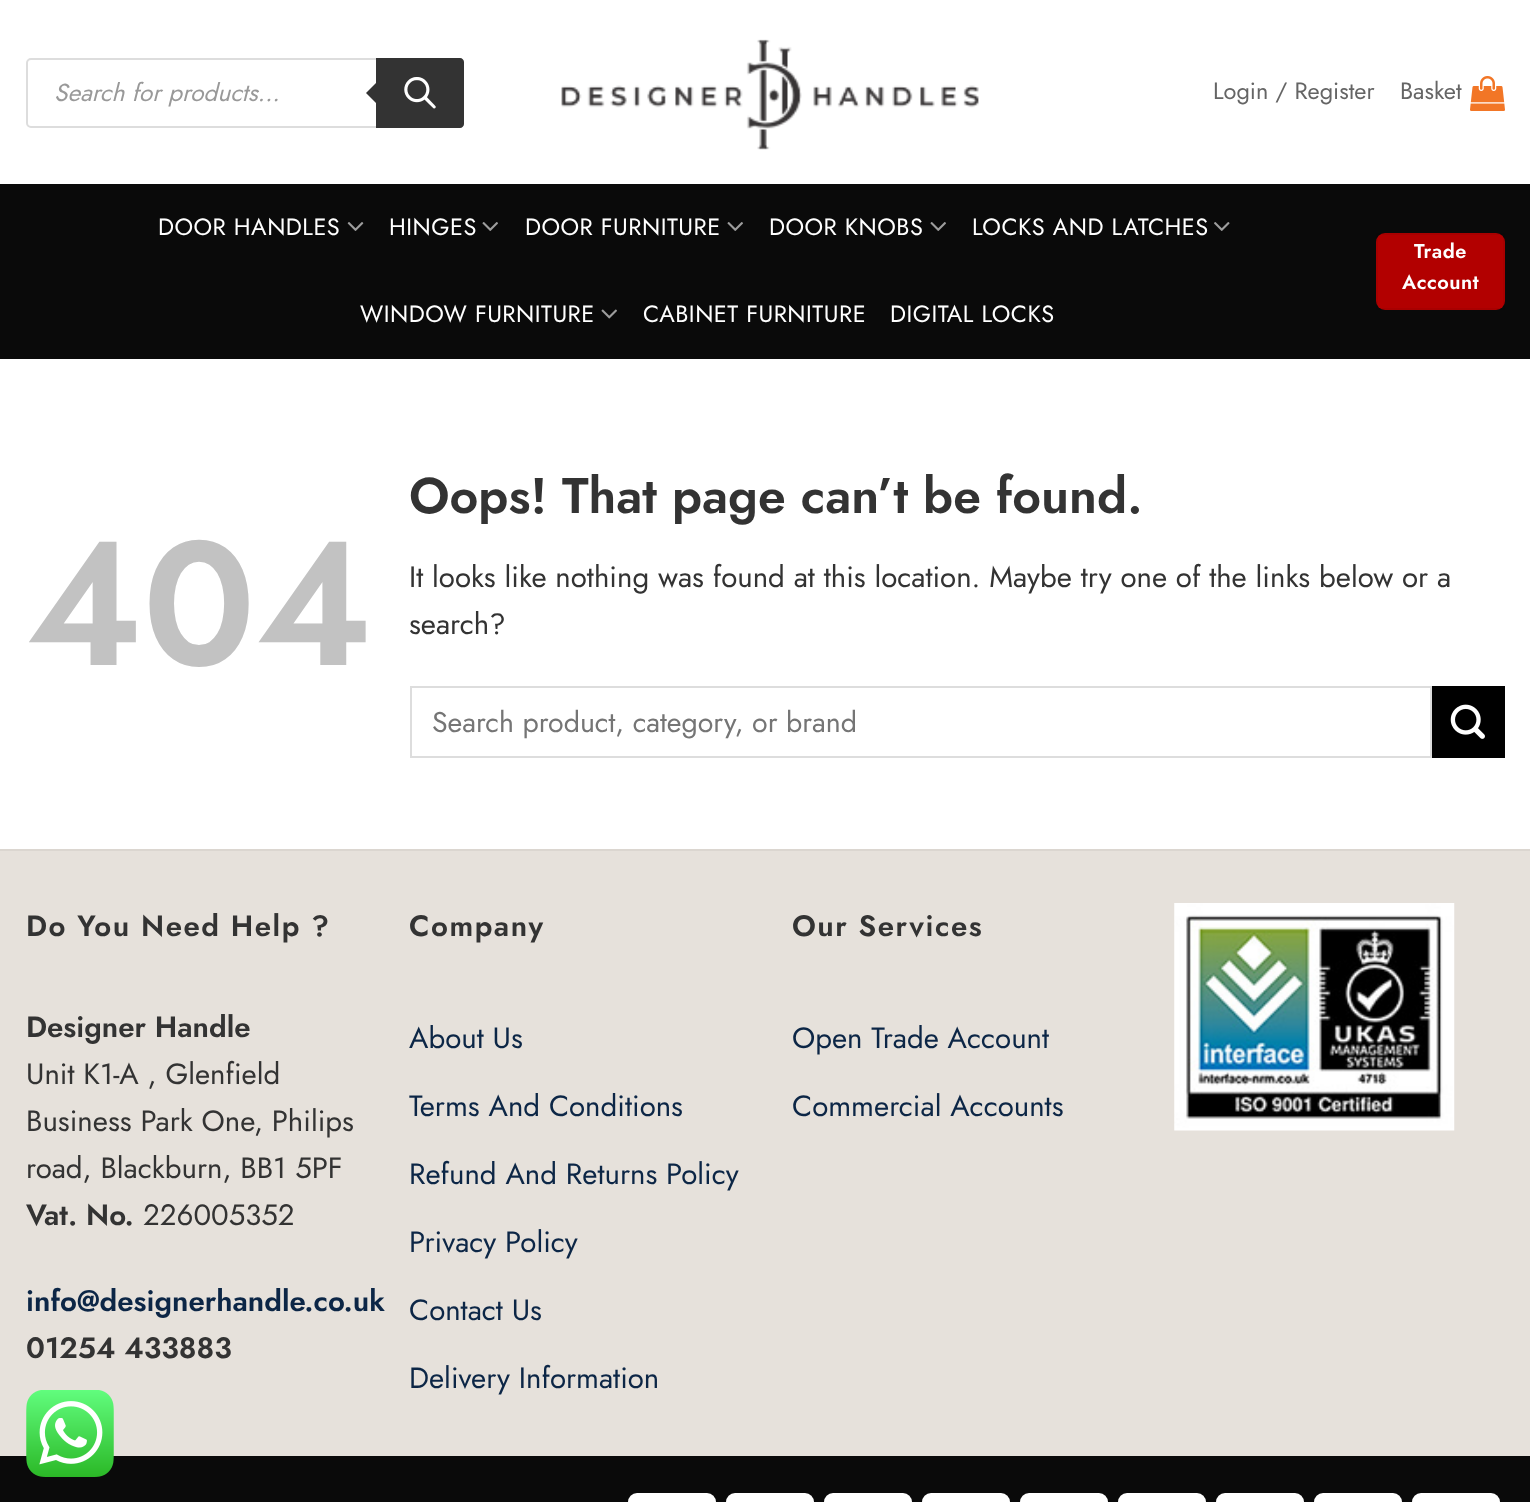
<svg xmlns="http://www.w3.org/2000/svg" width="1530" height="1502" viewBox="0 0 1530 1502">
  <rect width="100%" height="100%" fill="#fff"/>
  <rect x="27" y="59" width="436" height="68" rx="4" fill="none" stroke="#ddd" stroke-width="2"/>
  <path d="M376 58H460C462 58 464 60 464 62V124C464 126 462 128 460 128H376Z" fill="#333"/>
  <path d="M380 79V107L366 93Z" fill="#333"/>
  <image x="404" y="77" width="32" height="32" href="img/1.png"/>
  <image x="561" y="39" width="418" height="111" href="img/2.png"/>
  <image x="1470" y="76" width="35" height="35" href="img/3.png"/>
  <path d="M0 184h1530v175H0z" fill="#0a0a0a"/>
  <image x="347" y="222" width="17" height="9" href="img/4.png"/>
  <image x="482" y="222" width="16" height="9" href="img/5.png"/>
  <image x="727" y="222" width="16" height="9" href="img/5.png"/>
  <image x="930" y="222" width="16" height="9" href="img/5.png"/>
  <image x="1214" y="222" width="16" height="9" href="img/6.png"/>
  <image x="601" y="309" width="16" height="10" href="img/7.png"/>
  <rect x="1376" y="233" width="129" height="77" rx="9" fill="#b20000"/>
  <path d="M1377 234h127v75H1377z" fill="none" stroke="#0000000d" stroke-width="2"/>
  <path d="M411 687h1020v70H411z" fill="none" stroke="#ddd" stroke-width="2"/>
  <path d="M1432 686h73v72H1432z" fill="#000"/>
  <image x="1450" y="704" width="35" height="35" href="img/8.png"/>
  <path d="M0 851h1530v605H0z" fill="#e6e1db"/>
  <path d="M0 849h1530v2H0z" fill="#dbd6d0"/>
  <image x="1174" y="903" width="281" height="228" href="img/9.png"/>
  <path d="M0 1456h1530v46H0z" fill="#0a0a0a"/>
  <rect x="628" y="1493" width="88" height="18" rx="9" fill="#fff"/>
  <rect x="726" y="1493" width="88" height="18" rx="9" fill="#fff"/>
  <rect x="824" y="1493" width="88" height="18" rx="9" fill="#fff"/>
  <rect x="922" y="1493" width="88" height="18" rx="9" fill="#fff"/>
  <rect x="1020" y="1493" width="88" height="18" rx="9" fill="#fff"/>
  <rect x="1118" y="1493" width="88" height="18" rx="9" fill="#fff"/>
  <rect x="1216" y="1493" width="88" height="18" rx="9" fill="#fff"/>
  <rect x="1314" y="1493" width="88" height="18" rx="9" fill="#fff"/>
  <rect x="1412" y="1493" width="88" height="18" rx="9" fill="#fff"/>
  <image x="26" y="1390" width="88" height="87" href="img/10.png"/>
  <text x="54" y="101" font-family="Jost" font-size="24.5" font-style="italic" fill="#999">Search for products...</text>
  <g font-family="Jost" font-size="23.5" fill="#656565">
    <text x="1213" y="99">Login / Register</text>
    <text x="1400" y="99">Basket</text>
  </g>
  <g font-family="Jost" font-size="23.5" letter-spacing="0.5" fill="#fff">
    <text x="158" y="235">DOOR HANDLES</text>
    <text x="389" y="235">HINGES</text>
    <text x="525" y="235">DOOR FURNITURE</text>
    <text x="769" y="235">DOOR KNOBS</text>
    <text x="972" y="235">LOCKS AND LATCHES</text>
    <text x="360" y="322">WINDOW FURNITURE</text>
    <text x="643" y="322">CABINET FURNITURE</text>
    <text x="890" y="322">DIGITAL LOCKS</text>
  </g>
  <g font-family="Jost" font-size="20" font-weight="600" letter-spacing="0.5" fill="#fff">
    <text x="1414" y="258">Trade</text>
    <text x="1402" y="289">Account</text>
  </g>
  <text x="26" y="665" font-family="Jost" font-size="176" font-weight="600" fill="#c2c2c2">404</text>
  <text x="409" y="513" font-family="Jost" font-size="50" font-weight="600" fill="#333">Oops! That page can’t be found.</text>
  <g font-family="Jost" font-size="29.4" fill="#333">
    <text x="409" y="587">It looks like nothing was found at this location. Maybe try one of the links below or a</text>
    <text x="409" y="634">search?</text>
  </g>
  <text x="432" y="732" font-family="Jost" font-size="28.5" fill="#757575">Search product, category, or brand</text>
  <text x="26" y="936" font-family="Jost" font-size="29.4" font-weight="600" letter-spacing="1.5" fill="#333">Do You Need Help ?</text>
  <text x="26" y="1037" font-family="Jost" font-size="29.4" font-weight="600" fill="#333">Designer Handle</text>
  <g font-family="Jost" font-size="29.4" fill="#333">
    <text x="26" y="1084">Unit K1-A , Glenfield</text>
    <text x="26" y="1131">Business Park One, Philips</text>
    <text x="26" y="1178">road, Blackburn, BB1 5PF</text>
  </g>
  <text x="26" y="1225" font-family="Jost" font-size="29.4" font-weight="600" fill="#333">Vat. No.</text>
  <text x="143" y="1225" font-family="Jost" font-size="29.4" fill="#333">226005352</text>
  <text x="26" y="1311" font-family="Jost" font-size="29.4" font-weight="600" fill="#0c2646">info@designerhandle.co.uk</text>
  <text x="26" y="1358" font-family="Jost" font-size="29.4" font-weight="600" fill="#333">01254 433883</text>
  <text x="409" y="936" font-family="Jost" font-size="29.4" font-weight="600" letter-spacing="1.5" fill="#333">Company</text>
  <g font-family="Jost" font-size="29.4" fill="#0c2646">
    <text x="409" y="1048">About Us</text>
    <text x="409" y="1116">Terms And Conditions</text>
    <text x="409" y="1184">Refund And Returns Policy</text>
    <text x="409" y="1252">Privacy Policy</text>
    <text x="409" y="1320">Contact Us</text>
    <text x="409" y="1388">Delivery Information</text>
  </g>
  <text x="792" y="936" font-family="Jost" font-size="29.4" font-weight="600" letter-spacing="1.5" fill="#333">Our Services</text>
  <g font-family="Jost" font-size="29.4" fill="#0c2646">
    <text x="792" y="1048">Open Trade Account</text>
    <text x="792" y="1116">Commercial Accounts</text>
  </g>
</svg>
